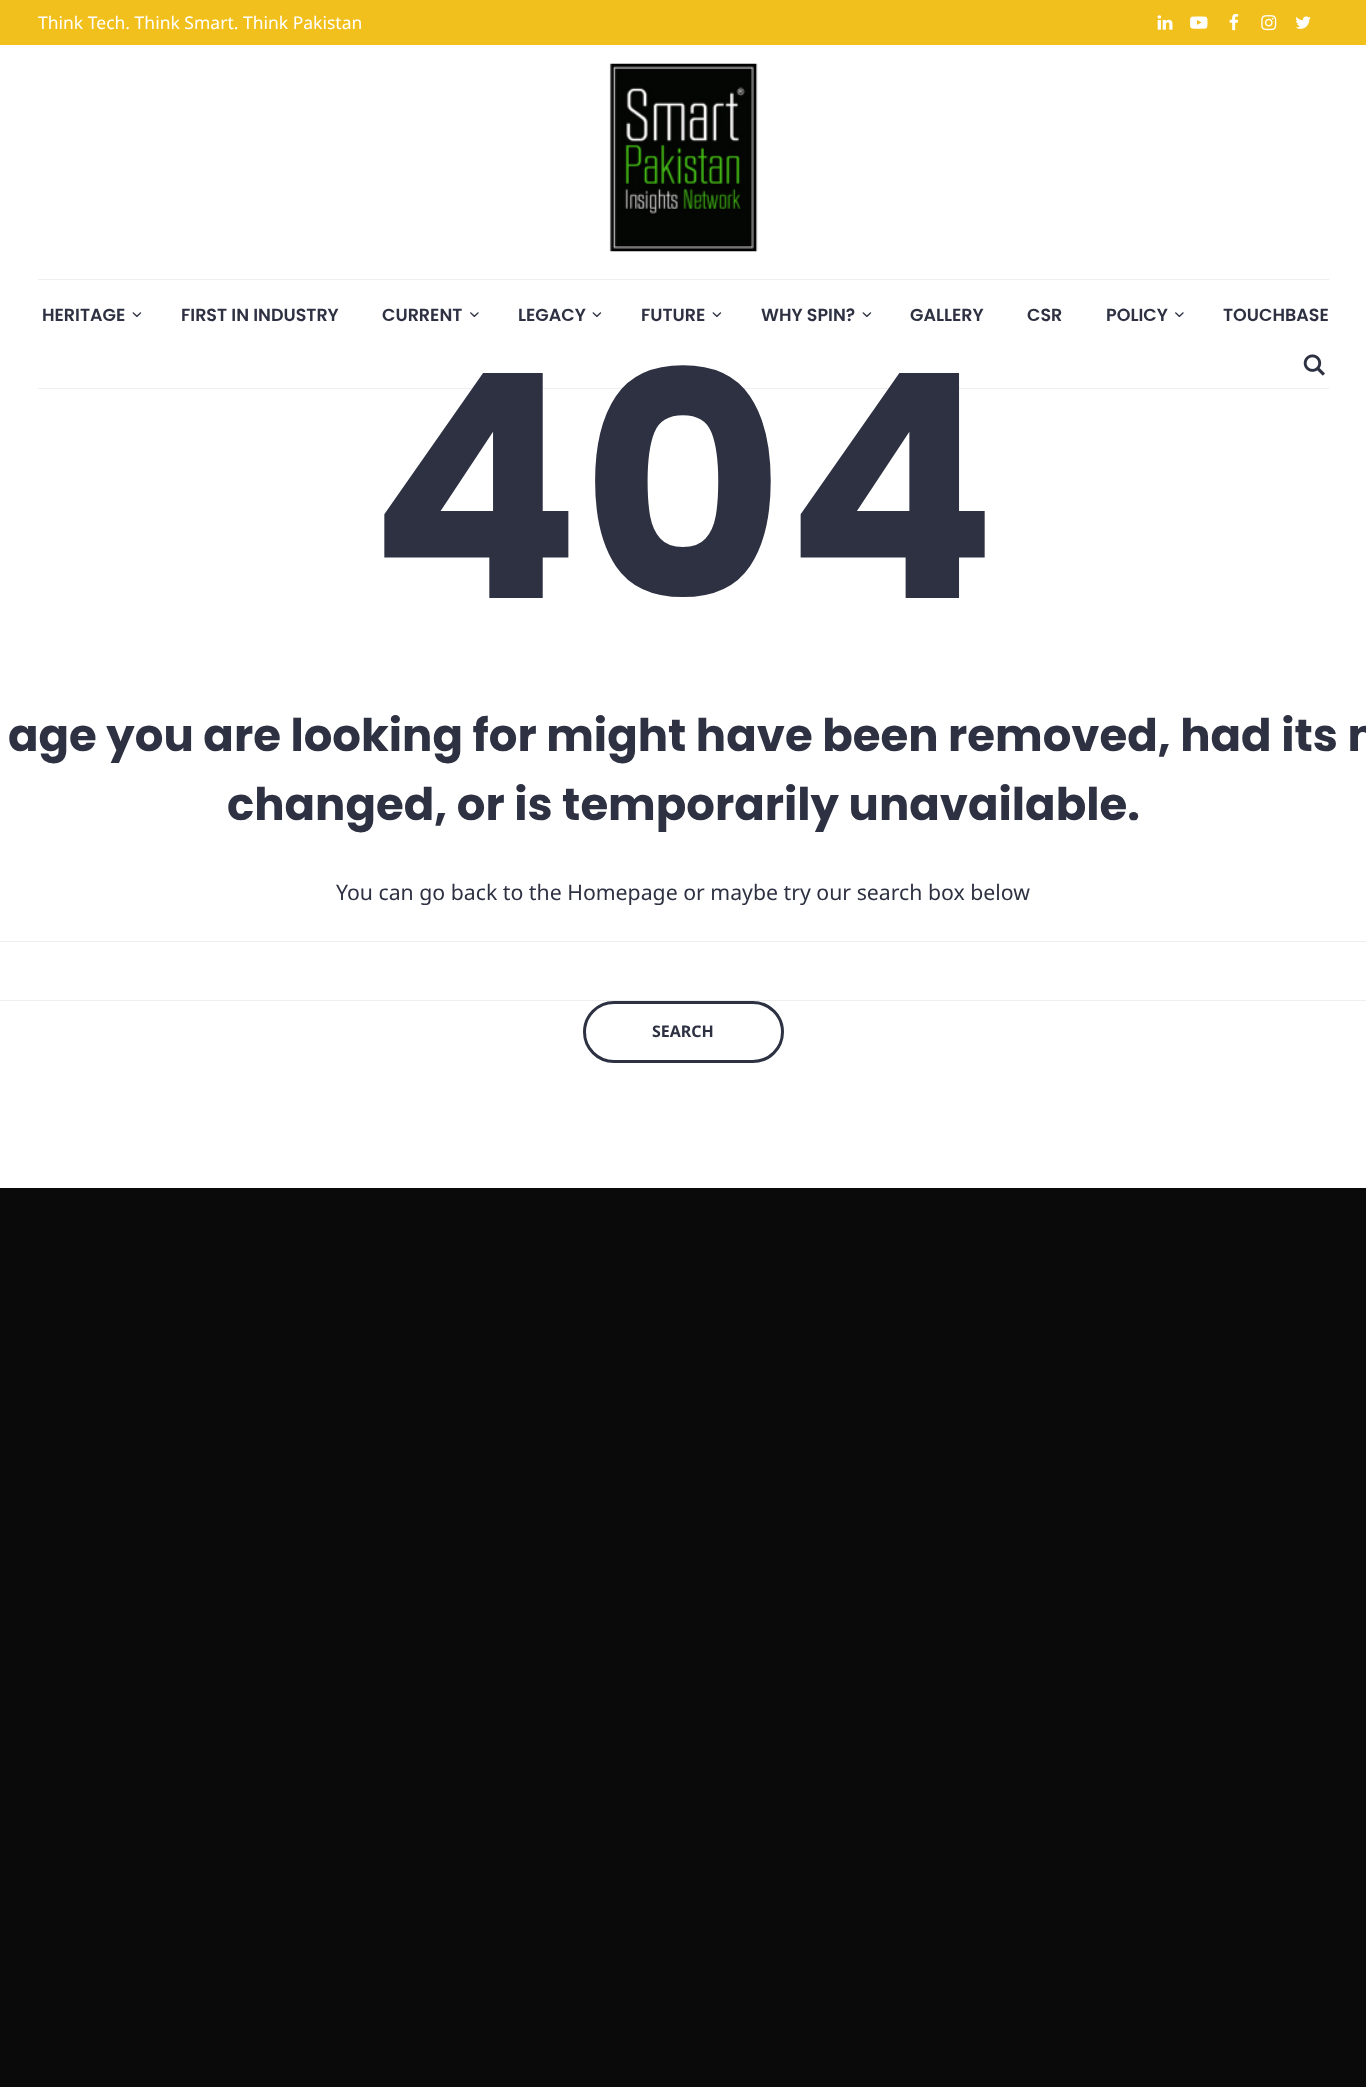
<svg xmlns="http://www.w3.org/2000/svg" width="1366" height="2087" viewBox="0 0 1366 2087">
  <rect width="100%" height="100%" fill="#0a0a0a"/>
  <path d="M0 45h1366v1143H0z" fill="#fff"/>
  <path d="M0 0h1366v45H0z" fill="#f2c01d"/>
  <image x="1157" y="15" width="16" height="15" href="img/1.png"/>
  <image x="1190" y="16" width="18" height="13" href="img/2.png"/>
  <image x="1229" y="13" width="10" height="18" href="img/3.png"/>
  <image x="1261" y="15" width="16" height="16" href="img/4.png"/>
  <image x="1295" y="16" width="16" height="13" href="img/5.png"/>
  <image x="609" y="63" width="149" height="189" href="img/6.png"/>
  <path d="M38 279h1291v1H38z" fill="#eee"/>
  <path d="M38 388h1291v1H38z" fill="#eee"/>
  <image x="132" y="312" width="10" height="6" href="img/7.png"/>
  <image x="470" y="312" width="9" height="6" href="img/8.png"/>
  <image x="592" y="312" width="10" height="6" href="img/7.png"/>
  <image x="712" y="312" width="10" height="6" href="img/7.png"/>
  <image x="862" y="312" width="10" height="6" href="img/7.png"/>
  <image x="1175" y="312" width="9" height="6" href="img/8.png"/>
  <image x="1303" y="354" width="22" height="22" href="img/9.png"/>
  <path d="M-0.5 941.5h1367v59H-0.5z" fill="none" stroke="#eee"/>
  <rect x="584.5" y="1002.5" width="198" height="59" rx="29.5" fill="none" stroke="#2d3142" stroke-width="3"/>
  <text x="38" y="29" font-family="Noto Sans" font-size="17.5" fill="#fff">Think Tech. Think Smart. Think Pakistan</text>
  <g font-family="Poppins" font-size="17.5" font-weight="600" fill="#2d3142">
    <text x="42" y="321">HERITAGE</text>
    <text x="181" y="321">FIRST IN INDUSTRY</text>
    <text x="382" y="321">CURRENT</text>
    <text x="518" y="321">LEGACY</text>
    <text x="641" y="321">FUTURE</text>
    <text x="761" y="321">WHY SPIN?</text>
    <text x="910" y="321">GALLERY</text>
    <text x="1027" y="321">CSR</text>
    <text x="1106" y="321">POLICY</text>
    <text x="1223" y="321">TOUCHBASE</text>
  </g>
  <text x="369" y="598" font-family="Poppins" font-size="312.5" font-weight="bold" letter-spacing="0.5" fill="#2d3142">404</text>
  <g font-family="Poppins" font-size="45" font-weight="bold" fill="#2d3142">
    <text x="8" y="751">age you are looking for might have been removed, had its n</text>
    <text x="227" y="820">changed, or is temporarily unavailable.</text>
  </g>
  <text x="336" y="900" font-family="Noto Sans" font-size="21.25" fill="#2d3142">You can go back to the Homepage or maybe try our search box below</text>
  <text x="652" y="1037" font-family="Noto Sans" font-size="16" font-weight="bold" fill="#2d3142">SEARCH</text>
</svg>
